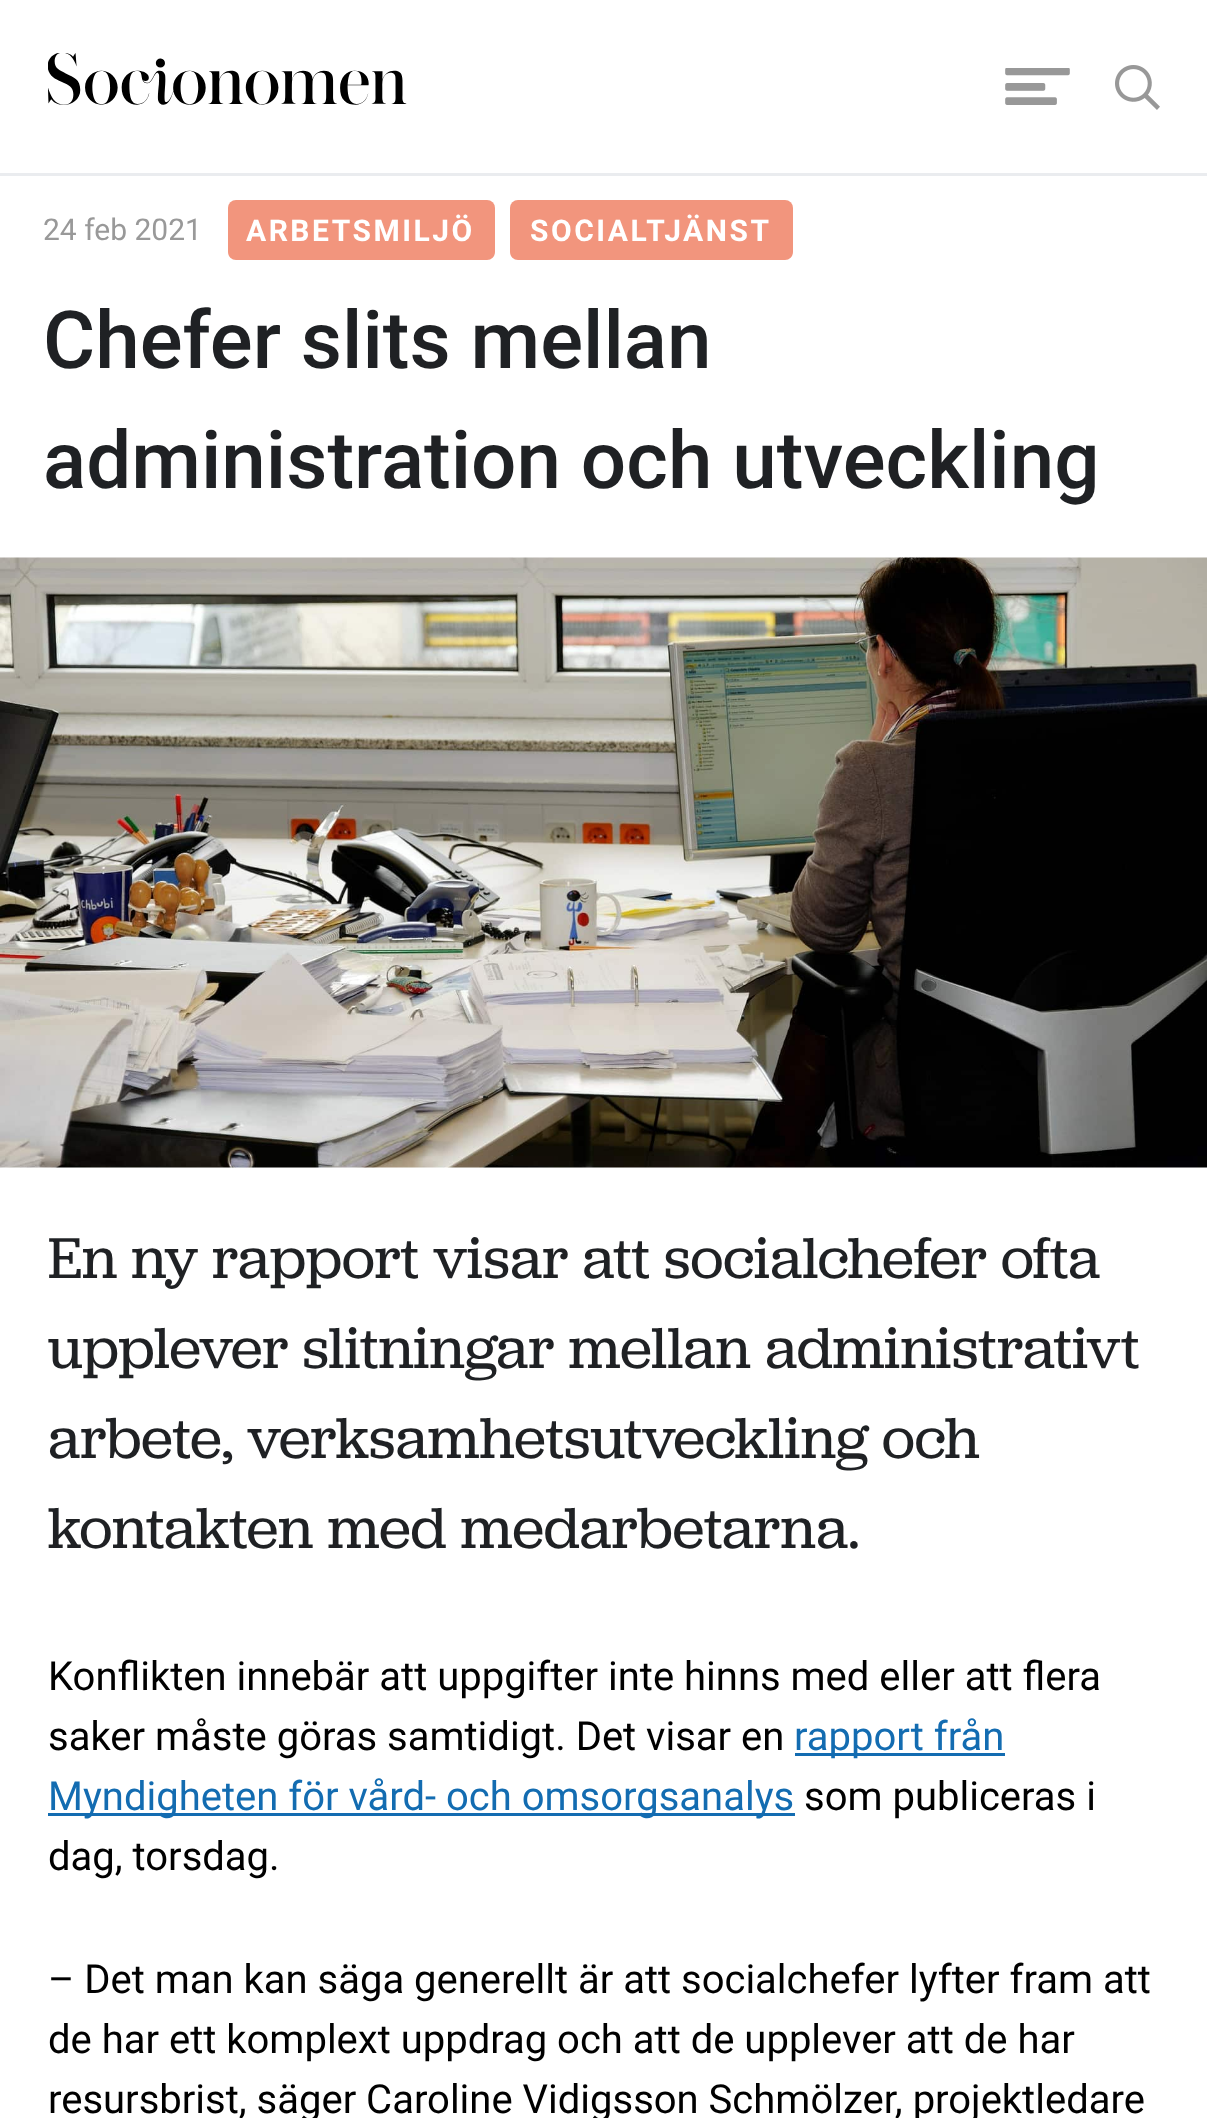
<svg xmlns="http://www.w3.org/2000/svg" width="1207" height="2118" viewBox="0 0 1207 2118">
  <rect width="100%" height="100%" fill="#fff"/>
  <path d="M0 173h1207v3H0z" fill="#eaecef"/>
  <image x="48" y="53" width="359" height="52" href="img/1.png"/>
  <image x="1005" y="68" width="65" height="37" href="img/2.png"/>
  <image x="1115" y="65" width="45" height="45" href="img/3.png"/>
  <rect x="228" y="200" width="267" height="60" rx="8" fill="#f2957d"/>
  <rect x="510" y="200" width="283" height="60" rx="8" fill="#f2957d"/>
  <image x="0" y="557" width="1207" height="611" href="img/4.png"/>
  <path d="M795 1753h210v3H795z" fill="#136cb1"/>
  <path d="M48 1813h747v3H48z" fill="#136cb1"/>
  <text x="43" y="240" font-family="Roboto" font-size="30" fill="#999">24 feb 2021</text>
  <g font-family="Roboto" font-size="30" font-weight="bold" letter-spacing="2.5" fill="#fff">
    <text x="246" y="241">ARBETSMILJÖ</text>
    <text x="530" y="241">SOCIALTJÄNST</text>
  </g>
  <g font-family="Roboto" font-size="80" font-weight="500" fill="#1f2124">
    <text x="43" y="368">Chefer slits mellan</text>
    <text x="43" y="488">administration och utveckling</text>
  </g>
  <g font-family="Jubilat" font-size="60" fill="#1f2124">
    <text x="48" y="1278">En ny rapport visar att socialchefer ofta</text>
    <text x="48" y="1368">upplever slitningar mellan administrativt</text>
    <text x="48" y="1458">arbete, verksamhetsutveckling och</text>
    <text x="48" y="1548">kontakten med medarbetarna.</text>
  </g>
  <g font-family="Roboto" font-size="40" fill="#000">
    <text x="48" y="1690">Konflikten innebär att uppgifter inte hinns med eller att flera</text>
    <text x="48" y="1750">saker måste göras samtidigt. Det visar en</text>
  </g>
  <g font-family="Roboto" font-size="40" fill="#136cb1">
    <text x="794" y="1750">rapport från</text>
    <text x="48" y="1810">Myndigheten för vård- och omsorgsanalys</text>
  </g>
  <g font-family="Roboto" font-size="40" fill="#000">
    <text x="804" y="1810">som publiceras i</text>
    <text x="48" y="1870">dag, torsdag.</text>
    <text x="48" y="1993">– Det man kan säga generellt är att socialchefer lyfter fram att</text>
    <text x="48" y="2053">de har ett komplext uppdrag och att de upplever att de har</text>
    <text x="48" y="2113">resursbrist, säger Caroline Vidigsson Schmölzer, projektledare</text>
  </g>
</svg>
